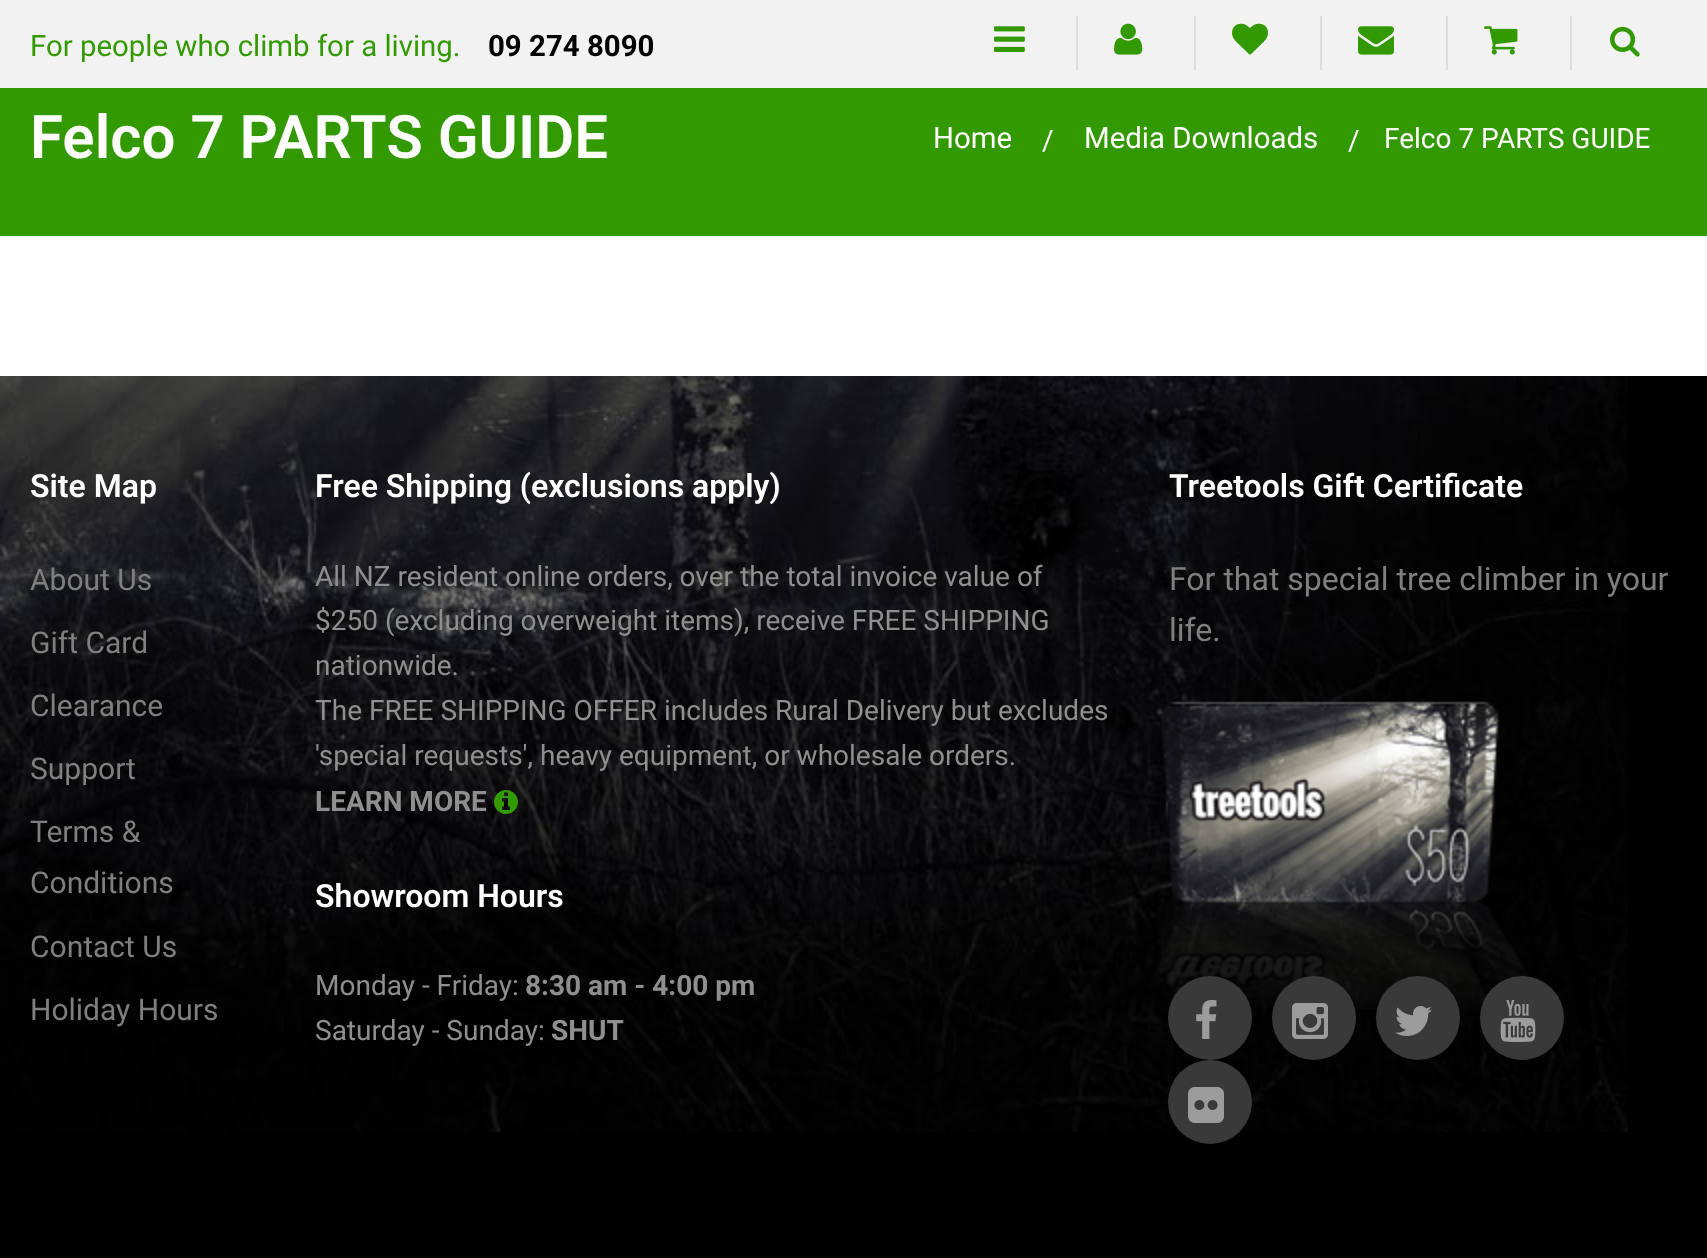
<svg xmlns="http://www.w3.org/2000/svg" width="1707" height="1258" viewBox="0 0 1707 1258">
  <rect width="100%" height="100%" fill="#390"/>
  <path d="M0 0h1707v88H0z" fill="#f2f2f2"/>
  <path d="M1076 16h2v54H1076z" fill="#dcdcdc"/>
  <image x="994" y="26" width="31" height="26" href="img/1.png"/>
  <path d="M1194 16h2v54H1194z" fill="#dcdcdc"/>
  <image x="1114" y="23" width="29" height="32" href="img/2.png"/>
  <path d="M1320 16h2v54H1320z" fill="#dcdcdc"/>
  <image x="1232" y="23" width="36" height="32" href="img/3.png"/>
  <path d="M1446 16h2v54H1446z" fill="#dcdcdc"/>
  <image x="1358" y="26" width="36" height="29" href="img/4.png"/>
  <path d="M1570 16h2v54H1570z" fill="#dcdcdc"/>
  <image x="1484" y="26" width="34" height="29" href="img/5.png"/>
  <image x="1610" y="26" width="30" height="31" href="img/6.png"/>
  <path d="M0 236h1707v140H0z" fill="#fff"/>
  <path d="M0 376h1707v882H0z" fill="#000"/>
  <image x="0" y="376" width="1628" height="756" href="img/7.png"/>
  <image x="494" y="790" width="24" height="24" href="img/8.png"/>
  <image x="1148" y="701" width="380" height="308" href="img/9.png"/>
  <circle cx="1210" cy="1018" r="42" fill="#393939"/>
  <image x="1196" y="1000" width="21" height="39" href="img/10.png"/>
  <circle cx="1314" cy="1018" r="42" fill="#393939"/>
  <image x="1292" y="1003" width="36" height="36" href="img/11.png"/>
  <circle cx="1418" cy="1018" r="42" fill="#393939"/>
  <image x="1395" y="1006" width="37" height="30" href="img/12.png"/>
  <circle cx="1522" cy="1018" r="42" fill="#393939"/>
  <image x="1500" y="1000" width="36" height="42" href="img/13.png"/>
  <circle cx="1210" cy="1102" r="42" fill="#393939"/>
  <image x="1188" y="1087" width="36" height="36" href="img/14.png"/>
  <text x="30" y="56" font-family="Roboto" font-size="29.4" fill="#390">For people who climb for a living.</text>
  <text x="488" y="56" font-family="Roboto" font-size="29.4" font-weight="bold" fill="#000">09 274 8090</text>
  <text x="30" y="158" font-family="Roboto" font-size="60" font-weight="600" fill="#fff">Felco 7 PARTS GUIDE</text>
  <text x="933" y="148" font-family="Roboto" font-size="29.4" fill="#fff">Home</text>
  <text x="1042" y="150" font-family="Roboto" font-size="28" fill="#fff">/</text>
  <text x="1084" y="148" font-family="Roboto" font-size="29.4" fill="#fff">Media Downloads</text>
  <g font-family="Roboto" font-size="28" fill="#fff">
    <text x="1348" y="150">/</text>
    <text x="1384" y="148">Felco 7 PARTS GUIDE</text>
  </g>
  <text x="30" y="497" font-family="Roboto" font-size="32" font-weight="600" fill="#fff">Site Map</text>
  <g font-family="Roboto" font-size="30" fill="#7f7f7f">
    <text x="30" y="590">About Us</text>
    <text x="30" y="653">Gift Card</text>
    <text x="30" y="716">Clearance</text>
    <text x="30" y="779">Support</text>
    <text x="30" y="842">Terms &amp;</text>
    <text x="30" y="893">Conditions</text>
    <text x="30" y="957">Contact Us</text>
    <text x="30" y="1020">Holiday Hours</text>
  </g>
  <text x="315" y="497" font-family="Roboto" font-size="32" font-weight="600" fill="#fff">Free Shipping (exclusions apply)</text>
  <g font-family="Roboto" font-size="28" fill="#8f8f8f">
    <text x="315" y="586">All NZ resident online orders, over the total invoice value of</text>
    <text x="315" y="630">$250 (excluding overweight items), receive FREE SHIPPING</text>
    <text x="315" y="675">nationwide.</text>
    <text x="315" y="720">The FREE SHIPPING OFFER includes Rural Delivery but excludes</text>
    <text x="315" y="765">'special requests', heavy equipment, or wholesale orders.</text>
  </g>
  <text x="315" y="811" font-family="Roboto" font-size="28" font-weight="bold" fill="#8f8f8f">LEARN MORE</text>
  <text x="315" y="907" font-family="Roboto" font-size="32" font-weight="600" fill="#fff">Showroom Hours</text>
  <text x="315" y="995" font-family="Roboto" font-size="28" fill="#8f8f8f">Monday - Friday:</text>
  <text x="525" y="995" font-family="Roboto" font-size="28" font-weight="bold" fill="#8f8f8f">8:30 am - 4:00 pm</text>
  <text x="315" y="1040" font-family="Roboto" font-size="28" fill="#8f8f8f">Saturday - Sunday:</text>
  <text x="551" y="1040" font-family="Roboto" font-size="28" font-weight="bold" fill="#8f8f8f">SHUT</text>
  <text x="1169" y="497" font-family="Roboto" font-size="32" font-weight="600" fill="#fff">Treetools Gift Certificate</text>
  <g font-family="Roboto" font-size="32" fill="#7f7f7f">
    <text x="1169" y="590">For that special tree climber in your</text>
    <text x="1169" y="641">life.</text>
  </g>
</svg>
